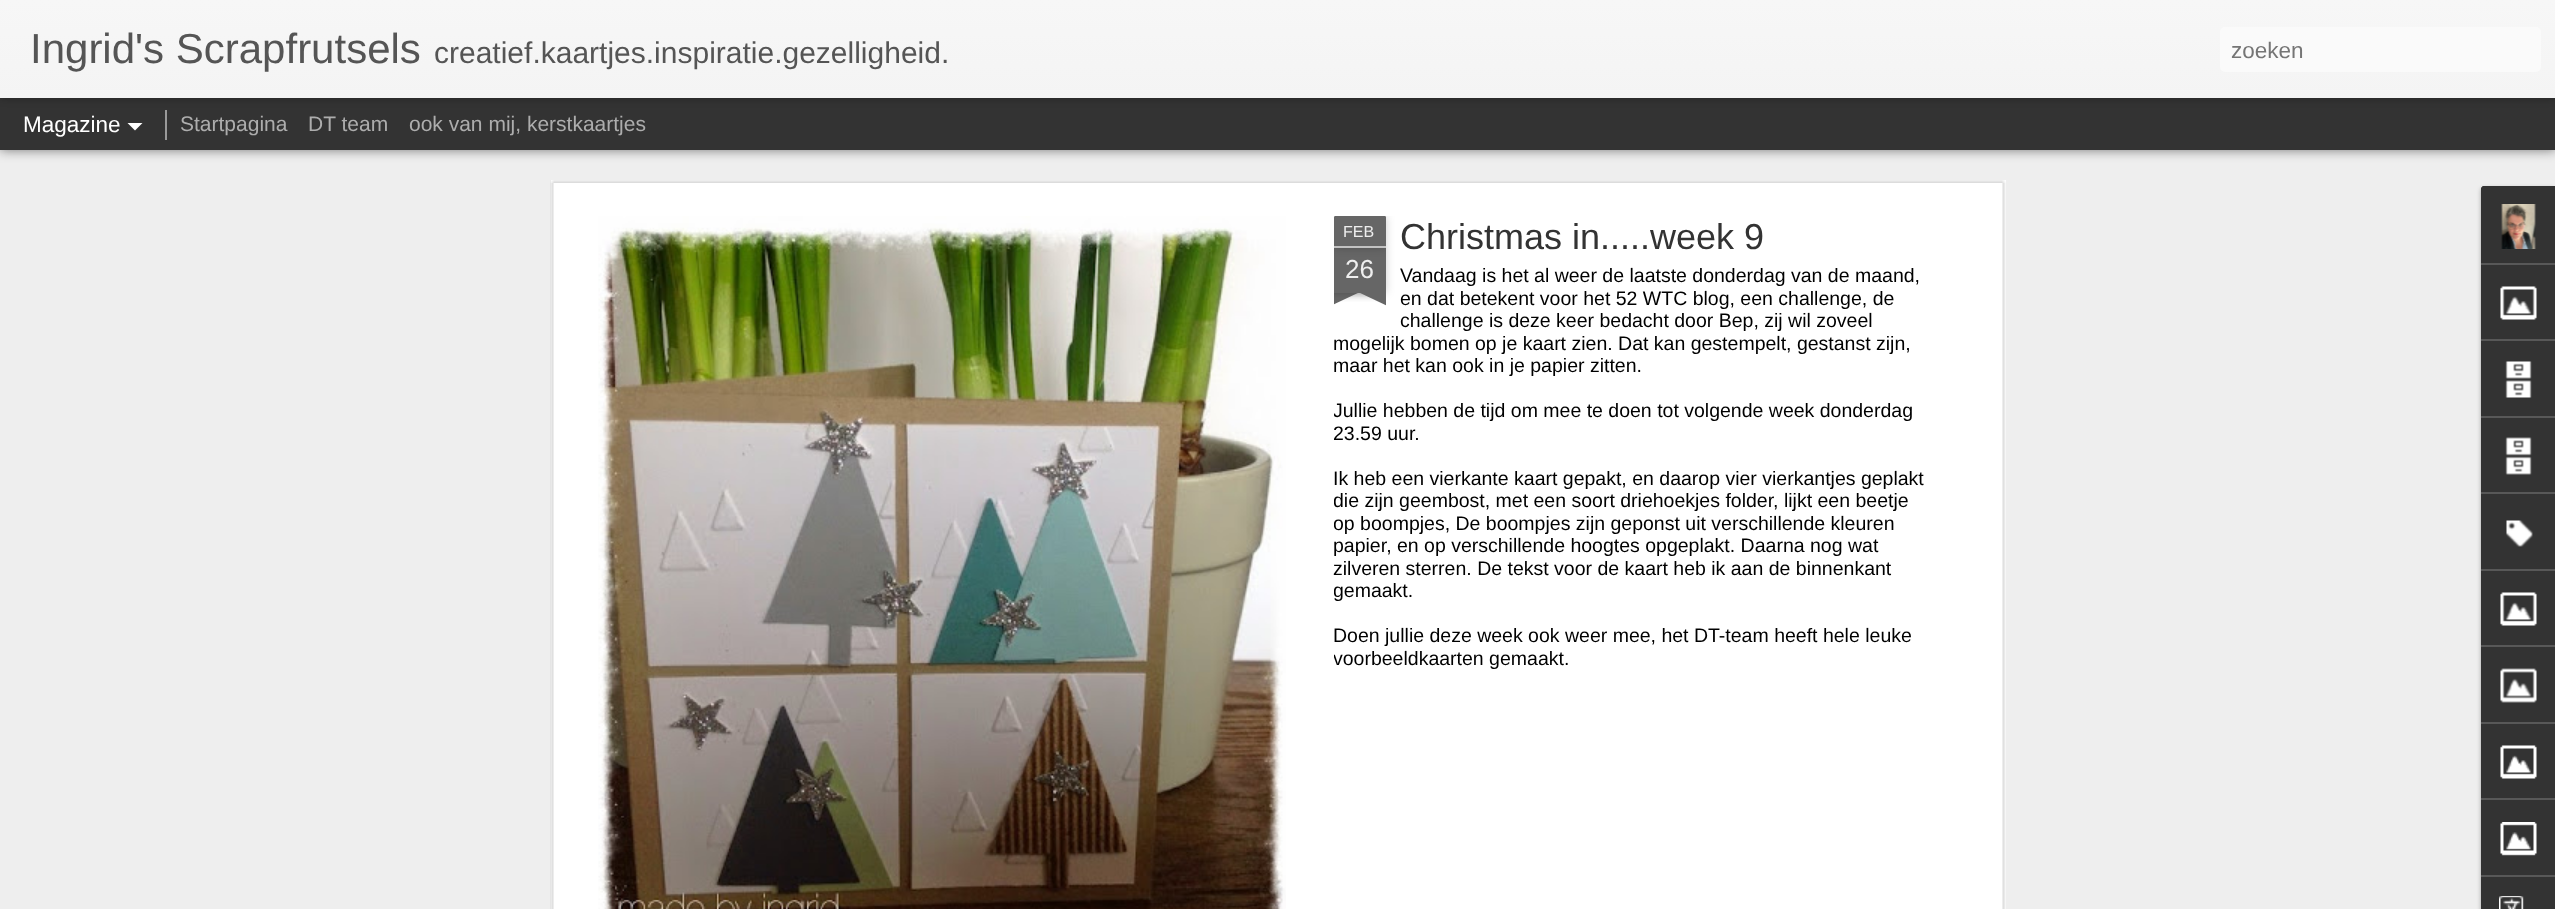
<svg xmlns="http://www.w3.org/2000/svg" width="2555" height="909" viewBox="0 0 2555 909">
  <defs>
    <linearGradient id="g1" gradientUnits="userSpaceOnUse" x1="0" y1="0" x2="0" y2="98"><stop offset="0" stop-color="#f7f7f7"/><stop offset="1" stop-color="#f4f4f4"/></linearGradient>
    <clipPath id="clip1"><path d="M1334 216h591v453H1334z"/></clipPath>
    <clipPath id="clip2"><path d="M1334 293h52v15H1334z"/></clipPath>
    <clipPath id="clip3"><path d="M1334 293h52v15H1334z"/></clipPath>
    <clipPath id="clip4"><path d="M1334 216h591v453H1334z"/></clipPath>
  </defs>
  <rect width="100%" height="100%" fill="#eee"/>
  <path d="M0 98h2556v52H0z" fill="#00000080" filter="blur(6px)"/>
  <path d="M0 98h2555v52H0z" fill="#333"/>
  <path d="M165 110h2v30H165z" fill="#999"/>
  <path d="M0 0h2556v98H0z" fill="#0000004d" filter="blur(4px)"/>
  <path d="M0 0h2555v98H0z" fill="url(#g1)"/>
  <rect x="2220" y="27" width="321" height="45" rx="5" fill="#fafafa"/>
  <path d="M127.5 123H142.5L135 130.5Z" fill="#fff"/>
  <path d="M551 180h1455v729H551z" fill="#fff"/>
  <image x="550" y="180" width="1456" height="729" href="img/1.png"/>
  <image x="598" y="216" width="688" height="693" href="img/2.png"/>
  <g clip-path="url(#clip1)">
    <path d="M1334 248h52v45H1334z" fill="#00000033" filter="blur(4px)"/>
  </g>
  <path d="M1334 248h52v45H1334z" fill="#666"/>
  <g clip-path="url(#clip1)">
    <rect x="1334" y="216" width="52" height="32" rx="1.5" fill="#00000033" filter="blur(4px)"/>
  </g>
  <path d="M1335.5 216H1384.5C1385.5 216 1386 216.5 1386 217.5V248H1334V217.5C1334 216.5 1334.5 216 1335.5 216Z" fill="#666"/>
  <path d="M1334 246h52v2H1334z" fill="#c2c2c2"/>
  <g clip-path="url(#clip2)">
    <path d="M1320 278h75v15H1320z" fill="#00000033" filter="blur(4px)"/>
  </g>
  <g clip-path="url(#clip3)">
    <path d="M1320 294L1388 262L1394 276L1326 308Z" fill="#666"/>
  </g>
  <g clip-path="url(#clip2)">
    <path d="M1325 278h75v15H1325z" fill="#00000033" filter="blur(4px)"/>
  </g>
  <g clip-path="url(#clip3)">
    <path d="M1331 262L1399 294L1392 308L1324 276Z" fill="#666"/>
  </g>
  <rect x="2481" y="188" width="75" height="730" rx="3" fill="#0000004d" filter="blur(2px)"/>
  <path d="M2484 186H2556V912H2484C2482.5 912 2481 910.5 2481 909V189C2481 187.5 2482.5 186 2484 186Z" fill="#333"/>
  <path d="M2484 186H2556V263H2481V189C2481 187.5 2482.5 186 2484 186Z" fill="#333"/>
  <image x="2501" y="204" width="35" height="45" href="img/3.png"/>
  <path d="M2481 263h74v2H2481z" fill="#585858"/>
  <image x="2500" y="286" width="37" height="34" href="img/4.png"/>
  <path d="M2481 339h74v2H2481z" fill="#585858"/>
  <image x="2505" y="361" width="27" height="37" href="img/5.png"/>
  <path d="M2481 416h74v2H2481z" fill="#585858"/>
  <image x="2505" y="437" width="27" height="38" href="img/6.png"/>
  <path d="M2481 492h74v2H2481z" fill="#585858"/>
  <image x="2506" y="520" width="27" height="27" href="img/7.png"/>
  <path d="M2481 569h74v2H2481z" fill="#585858"/>
  <image x="2500" y="592" width="37" height="34" href="img/4.png"/>
  <path d="M2481 645h74v2H2481z" fill="#585858"/>
  <image x="2500" y="668" width="37" height="35" href="img/8.png"/>
  <path d="M2481 722h74v2H2481z" fill="#585858"/>
  <image x="2500" y="745" width="37" height="34" href="img/9.png"/>
  <path d="M2481 798h74v2H2481z" fill="#585858"/>
  <image x="2500" y="822" width="37" height="34" href="img/10.png"/>
  <path d="M2481 875h74v2H2481z" fill="#585858"/>
  <image x="2499" y="896" width="25" height="13" href="img/11.png"/>
  <text x="30" y="63" font-family="Liberation Sans" font-size="42" fill="#555">Ingrid's Scrapfrutsels</text>
  <text x="434" y="63" font-family="Liberation Sans" font-size="30" fill="#555">creatief.kaartjes.inspiratie.gezelligheid.</text>
  <text x="2231" y="58" font-family="Liberation Sans" font-size="22.5" fill="#757575">zoeken</text>
  <text x="23" y="132" font-family="Liberation Sans" font-size="22.5" fill="#fff">Magazine</text>
  <g font-family="Liberation Sans" font-size="21" fill="#adadad">
    <text x="180" y="131">Startpagina</text>
    <text x="308" y="131">DT team</text>
    <text x="409" y="131">ook van mij, kerstkaartjes</text>
  </g>
  <text x="1343" y="237" font-family="Liberation Sans" font-size="16" fill="#eee">FEB</text>
  <text x="1345" y="278" font-family="Liberation Sans" font-size="26" fill="#eee">26</text>
  <text x="1400" y="249" font-family="Liberation Sans" font-size="36" fill="#333">Christmas in.....week 9</text>
  <g font-family="Liberation Sans" font-size="19.5" fill="#000">
    <text x="1400" y="282">Vandaag is het al weer de laatste donderdag van de maand,</text>
    <text x="1400" y="305">en dat betekent voor het 52 WTC blog, een challenge, de</text>
    <text x="1400" y="327">challenge is deze keer bedacht door Bep, zij wil zoveel</text>
    <text x="1333" y="350">mogelijk bomen op je kaart zien. Dat kan gestempelt, gestanst zijn,</text>
    <text x="1333" y="372">maar het kan ook in je papier zitten.</text>
  </g>
  <g clip-path="url(#clip4)">
    <text x="1333" y="417" font-family="Liberation Sans" font-size="19.5" fill="#000">Jullie hebben de tijd om mee te doen tot volgende week donderdag</text>
  </g>
  <g font-family="Liberation Sans" font-size="19.5" fill="#000">
    <text x="1333" y="440">23.59 uur.</text>
    <text x="1333" y="485">Ik heb een vierkante kaart gepakt, en daarop vier vierkantjes geplakt</text>
  </g>
  <g clip-path="url(#clip4)">
    <g font-family="Liberation Sans" font-size="19.5" fill="#000">
      <text x="1333" y="507">die zijn geembost, met een soort driehoekjes folder, lijkt een beetje</text>
      <text x="1333" y="530">op boompjes, De boompjes zijn geponst uit verschillende kleuren</text>
    </g>
  </g>
  <g font-family="Liberation Sans" font-size="19.5" fill="#000">
    <text x="1333" y="552">papier, en op verschillende hoogtes opgeplakt. Daarna nog wat</text>
    <text x="1333" y="575">zilveren sterren. De tekst voor de kaart heb ik aan de binnenkant</text>
  </g>
  <g clip-path="url(#clip4)">
    <text x="1333" y="597" font-family="Liberation Sans" font-size="19.5" fill="#000">gemaakt.</text>
  </g>
  <text x="1333" y="642" font-family="Liberation Sans" font-size="19.5" fill="#000">Doen jullie deze week ook weer mee, het DT-team heeft hele leuke</text>
  <g clip-path="url(#clip4)">
    <text x="1333" y="665" font-family="Liberation Sans" font-size="19.5" fill="#000">voorbeeldkaarten gemaakt.</text>
  </g>
</svg>
